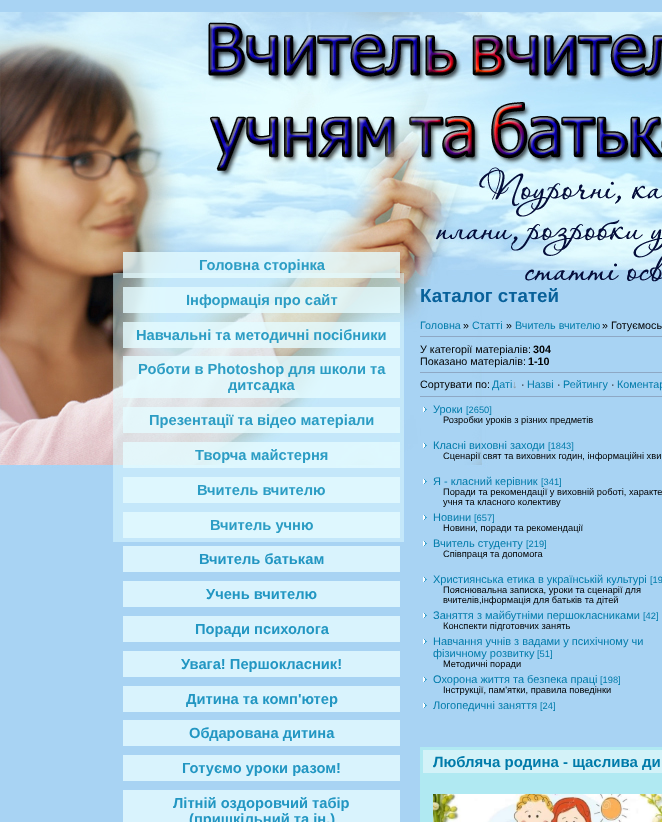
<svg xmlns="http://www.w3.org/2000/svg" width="662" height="822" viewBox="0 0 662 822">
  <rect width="100%" height="100%" fill="#a8d3f3"/>
  <image x="0" y="12" width="662" height="530" href="img/1.png"/>
  <path d="M123 252h277v26H123z" fill="#e5fbffcc"/>
  <path d="M123 287h277v26H123z" fill="#e5fbffcc"/>
  <path d="M123 322h277v26H123z" fill="#e5fbffcc"/>
  <path d="M123 356h277v42H123z" fill="#e5fbffcc"/>
  <path d="M123 407h277v26H123z" fill="#e5fbffcc"/>
  <path d="M123 442h277v26H123z" fill="#e5fbffcc"/>
  <path d="M123 477h277v26H123z" fill="#def7fe"/>
  <path d="M123 512h277v26H123z" fill="#def7fe"/>
  <path d="M123 546h277v26H123z" fill="#d9f3fd"/>
  <path d="M123 581h277v26H123z" fill="#d9f3fd"/>
  <path d="M123 616h277v26H123z" fill="#d9f3fd"/>
  <path d="M123 651h277v26H123z" fill="#d9f3fd"/>
  <path d="M123 686h277v26H123z" fill="#d9f3fd"/>
  <path d="M123 720h277v26H123z" fill="#d9f3fd"/>
  <path d="M123 755h277v26H123z" fill="#d9f3fd"/>
  <path d="M123 790h277v32H123z" fill="#d9f3fd"/>
  <path d="M420 336h242v1H420z" fill="#8ea8c4"/>
  <path d="M420 372h242v1H420z" fill="#8ea8c4"/>
  <path d="M420 396h242v1H420z" fill="#8ea8c4"/>
  <image x="423" y="407" width="4" height="5" href="img/2.png"/>
  <image x="423" y="443" width="4" height="5" href="img/2.png"/>
  <image x="423" y="479" width="4" height="5" href="img/2.png"/>
  <image x="423" y="515" width="4" height="5" href="img/2.png"/>
  <image x="423" y="541" width="4" height="5" href="img/2.png"/>
  <image x="423" y="577" width="4" height="5" href="img/2.png"/>
  <image x="423" y="613" width="4" height="5" href="img/2.png"/>
  <image x="423" y="639" width="4" height="5" href="img/2.png"/>
  <image x="423" y="677" width="4" height="5" href="img/2.png"/>
  <image x="423" y="703" width="4" height="5" href="img/2.png"/>
  <path d="M420 747h242v75H420z" fill="#b0e9f2"/>
  <path d="M423 750h239v23H423z" fill="#d3f2f8"/>
  <image x="433" y="794" width="229" height="28" href="img/3.png"/>
  <g font-family="Liberation Sans" font-size="14.7" font-weight="bold" fill="#2c9dc4">
    <text x="199" y="270">Головна сторінка</text>
    <text x="186" y="305">Інформація про сайт</text>
    <text x="136" y="340">Навчальні та методичні посібники</text>
    <text x="138" y="374">Роботи в Photoshop для школи та</text>
    <text x="228" y="390">дитсадка</text>
    <text x="149" y="425">Презентації та відео матеріали</text>
    <text x="195" y="460">Творча майстерня</text>
    <text x="197" y="495">Вчитель вчителю</text>
    <text x="210" y="530">Вчитель учню</text>
  </g>
  <g font-family="Liberation Sans" font-size="14.7" font-weight="bold" fill="#2296c2">
    <text x="199" y="564">Вчитель батькам</text>
    <text x="206" y="599">Учень вчителю</text>
    <text x="195" y="634">Поради психолога</text>
    <text x="181" y="669">Увага! Першокласник!</text>
    <text x="186" y="704">Дитина та комп'ютер</text>
    <text x="189" y="738">Обдарована дитина</text>
    <text x="182" y="773">Готуємо уроки разом!</text>
    <text x="173" y="808">Літній оздоровчий табір</text>
    <text x="189" y="824">(пришкільний та ін.)</text>
  </g>
  <text x="420" y="302" font-family="Liberation Sans" font-size="18.75" font-weight="bold" fill="#08619a">Каталог статей</text>
  <text x="420" y="329" font-family="Liberation Sans" font-size="10.75" fill="#007baa">Головна</text>
  <text x="463" y="329" font-family="Liberation Sans" font-size="10.75" fill="#000">»</text>
  <text x="472" y="329" font-family="Liberation Sans" font-size="10.75" fill="#007baa">Статті</text>
  <text x="506" y="329" font-family="Liberation Sans" font-size="10.75" fill="#000">»</text>
  <text x="515" y="329" font-family="Liberation Sans" font-size="10.75" fill="#007baa">Вчитель вчителю</text>
  <g font-family="Liberation Sans" font-size="10.75" fill="#000">
    <text x="602" y="329">» Готуємось</text>
    <text x="420" y="353">У категорії матеріалів:</text>
  </g>
  <text x="533" y="353" font-family="Liberation Sans" font-size="10.75" font-weight="bold" fill="#000">304</text>
  <text x="420" y="365" font-family="Liberation Sans" font-size="10.75" fill="#000">Показано матеріалів:</text>
  <text x="528" y="365" font-family="Liberation Sans" font-size="10.75" font-weight="bold" fill="#000">1-10</text>
  <text x="420" y="388" font-family="Liberation Sans" font-size="10.75" fill="#000">Сортувати по:</text>
  <text x="492" y="388" font-family="Liberation Sans" font-size="10.75" fill="#007baa">Даті</text>
  <text x="512" y="388" font-family="Liberation Sans" font-size="10.75" fill="#8a959d">↓</text>
  <text x="521" y="388" font-family="Liberation Sans" font-size="10.75" fill="#000">·</text>
  <text x="527" y="388" font-family="Liberation Sans" font-size="10.75" fill="#007baa">Назві</text>
  <text x="557" y="388" font-family="Liberation Sans" font-size="10.75" fill="#000">·</text>
  <text x="563" y="388" font-family="Liberation Sans" font-size="10.75" fill="#007baa">Рейтингу</text>
  <text x="611" y="388" font-family="Liberation Sans" font-size="10.75" fill="#000">·</text>
  <text x="617" y="388" font-family="Liberation Sans" font-size="10.75" fill="#007baa">Коментар</text>
  <text x="433" y="413" font-family="Liberation Sans" font-size="11" fill="#007baa">Уроки</text>
  <text x="466" y="413" font-family="Liberation Sans" font-size="9.3" fill="#007baa">[2650]</text>
  <text x="443" y="423" font-family="Liberation Sans" font-size="9.3" fill="#000">Розробки уроків з різних предметів</text>
  <text x="433" y="449" font-family="Liberation Sans" font-size="11" fill="#007baa">Класні виховні заходи</text>
  <text x="548" y="449" font-family="Liberation Sans" font-size="9.3" fill="#007baa">[1843]</text>
  <text x="443" y="459" font-family="Liberation Sans" font-size="9.3" fill="#000">Cценарії свят та виховних годин, інформаційні хви</text>
  <text x="433" y="485" font-family="Liberation Sans" font-size="11" fill="#007baa">Я - класний керівник</text>
  <text x="541" y="485" font-family="Liberation Sans" font-size="9.3" fill="#007baa">[341]</text>
  <g font-family="Liberation Sans" font-size="9.3" fill="#000">
    <text x="443" y="495">Поради та рекомендації у виховній роботі, характе</text>
    <text x="443" y="505">учня та класного колективу</text>
  </g>
  <text x="433" y="521" font-family="Liberation Sans" font-size="11" fill="#007baa">Новини</text>
  <text x="474" y="521" font-family="Liberation Sans" font-size="9.3" fill="#007baa">[657]</text>
  <text x="443" y="531" font-family="Liberation Sans" font-size="9.3" fill="#000">Новини, поради та рекомендації</text>
  <text x="433" y="547" font-family="Liberation Sans" font-size="11" fill="#007baa">Вчитель студенту</text>
  <text x="526" y="547" font-family="Liberation Sans" font-size="9.3" fill="#007baa">[219]</text>
  <text x="443" y="557" font-family="Liberation Sans" font-size="9.3" fill="#000">Співпраця та допомога</text>
  <text x="433" y="583" font-family="Liberation Sans" font-size="11" fill="#007baa">Християнська етика в українській культурі</text>
  <text x="650" y="583" font-family="Liberation Sans" font-size="9.3" fill="#007baa">[19</text>
  <g font-family="Liberation Sans" font-size="9.3" fill="#000">
    <text x="443" y="593">Пояснювальна записка, уроки та сценарії для</text>
    <text x="443" y="603">вчителів,інформація для батьків та дітей</text>
  </g>
  <text x="433" y="619" font-family="Liberation Sans" font-size="11" fill="#007baa">Заняття з майбутніми першокласниками</text>
  <text x="643" y="619" font-family="Liberation Sans" font-size="9.3" fill="#007baa">[42]</text>
  <text x="443" y="629" font-family="Liberation Sans" font-size="9.3" fill="#000">Конспекти підготовчих занять</text>
  <g font-family="Liberation Sans" font-size="11" fill="#007baa">
    <text x="433" y="645">Навчання учнів з вадами у психічному чи</text>
    <text x="433" y="657">фізичному розвитку</text>
  </g>
  <text x="537" y="657" font-family="Liberation Sans" font-size="9.3" fill="#007baa">[51]</text>
  <text x="443" y="667" font-family="Liberation Sans" font-size="9.3" fill="#000">Методичні поради</text>
  <text x="433" y="683" font-family="Liberation Sans" font-size="11" fill="#007baa">Охорона життя та безпека праці</text>
  <text x="600" y="683" font-family="Liberation Sans" font-size="9.3" fill="#007baa">[198]</text>
  <text x="443" y="693" font-family="Liberation Sans" font-size="9.3" fill="#000">Інструкції, пам'ятки, правила поведінки</text>
  <text x="433" y="709" font-family="Liberation Sans" font-size="11" fill="#007baa">Логопедичні заняття</text>
  <text x="540" y="709" font-family="Liberation Sans" font-size="9.3" fill="#007baa">[24]</text>
  <text x="433" y="767" font-family="Liberation Sans" font-size="15" font-weight="bold" fill="#007baa">Любляча родина - щаслива ди</text>
</svg>
